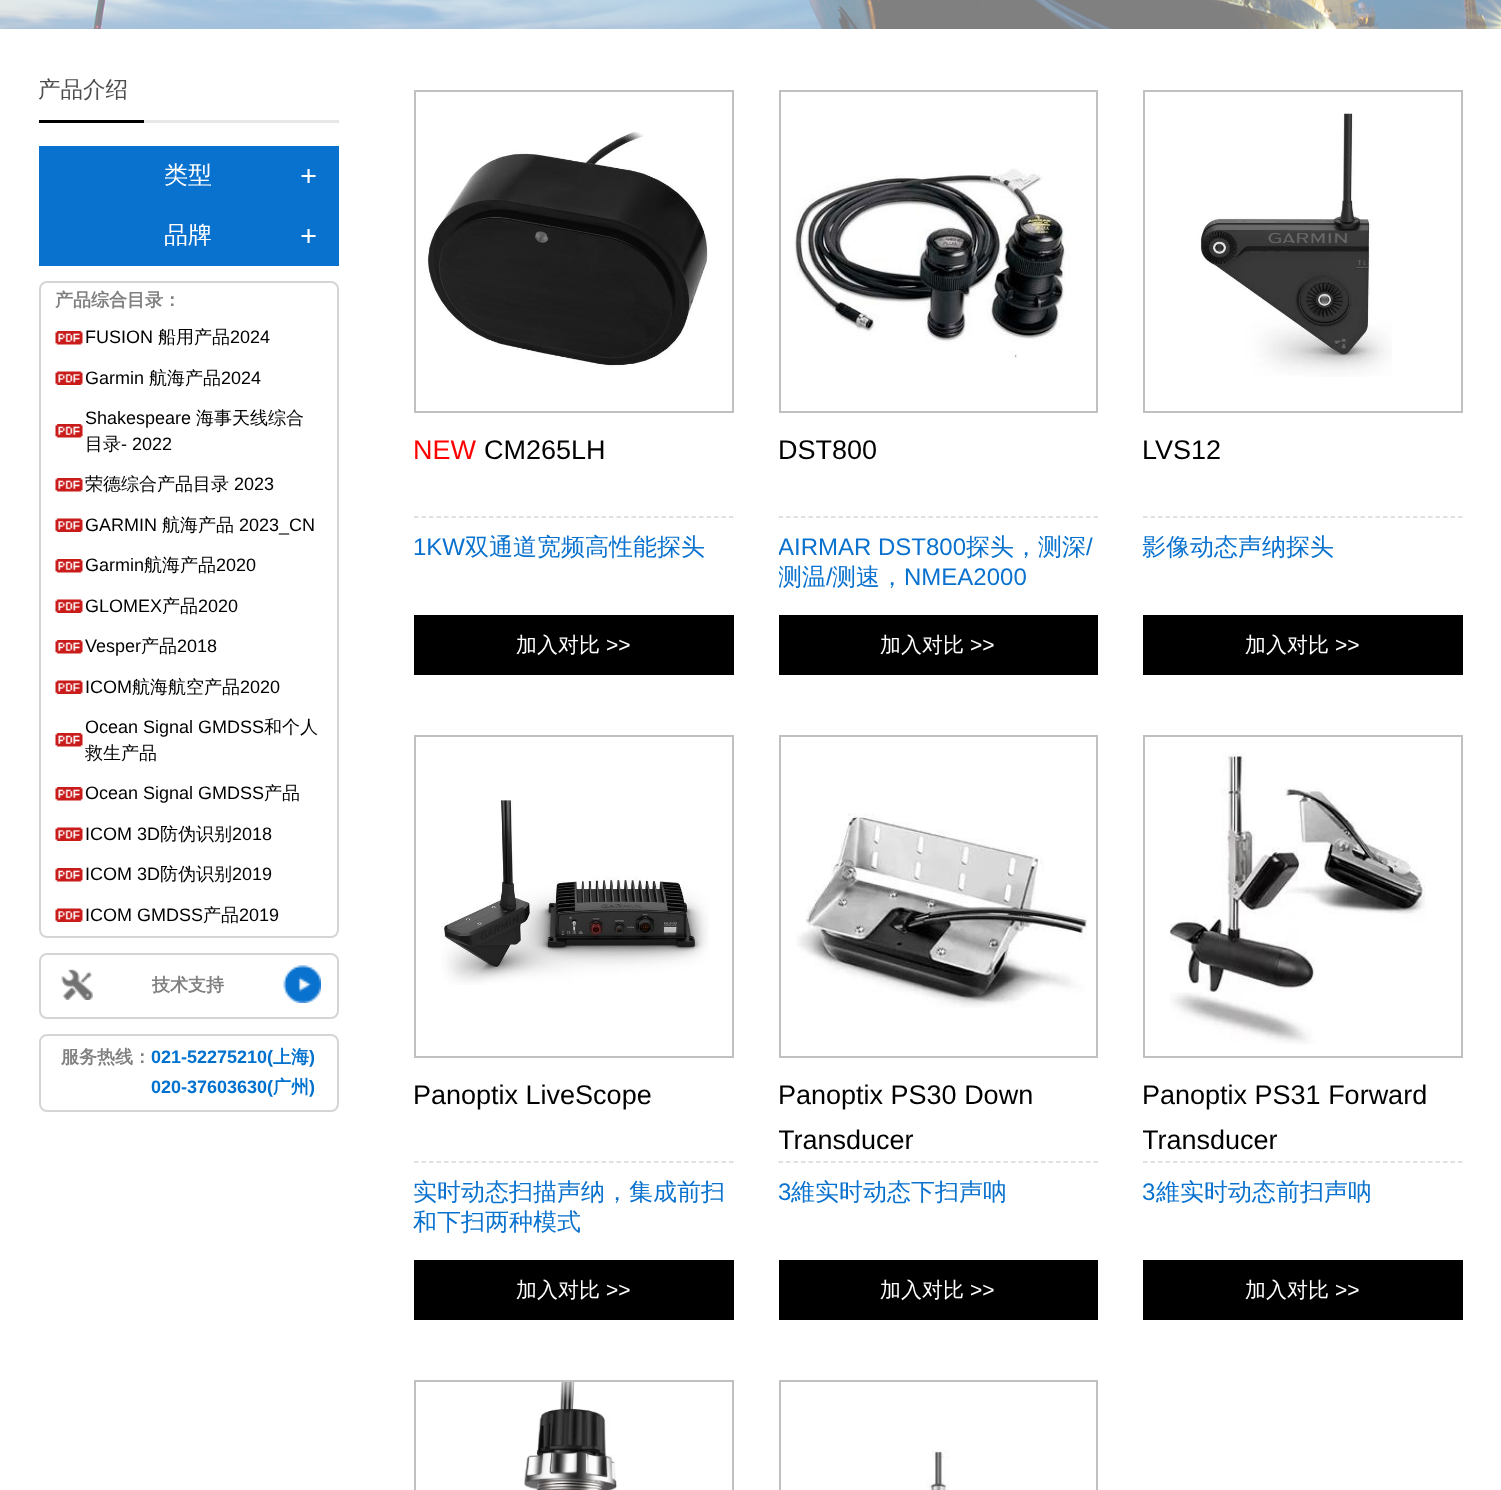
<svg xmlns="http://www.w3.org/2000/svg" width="1501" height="1490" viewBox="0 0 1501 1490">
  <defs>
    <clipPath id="clip1"><path d="M779 533h319v60H779z"/></clipPath>
    <clipPath id="clip2"><path d="M779 1073h319v88H779z"/></clipPath>
    <clipPath id="clip3"><path d="M1143 1073h320v88H1143z"/></clipPath>
  </defs>
  <rect width="100%" height="100%" fill="#fff"/>
  <image x="0" y="0" width="1501" height="29" href="img/1.png"/>
  <path d="M144 120h195v3H144z" fill="#e7e7e7"/>
  <path d="M39 120h105v3H39z" fill="#000"/>
  <path d="M39 146h300v120H39z" fill="#0971ce"/>
  <rect x="40" y="282" width="298" height="655" rx="7" fill="none" stroke="#d5d5d5" stroke-width="2"/>
  <image x="55" y="331" width="28" height="14" href="img/2.png"/>
  <image x="55" y="371" width="28" height="14" href="img/3.png"/>
  <image x="55" y="424" width="28" height="14" href="img/2.png"/>
  <image x="55" y="478" width="28" height="14" href="img/2.png"/>
  <image x="55" y="518" width="28" height="14" href="img/3.png"/>
  <image x="55" y="559" width="28" height="14" href="img/2.png"/>
  <image x="55" y="599" width="28" height="14" href="img/3.png"/>
  <image x="55" y="640" width="28" height="14" href="img/2.png"/>
  <image x="55" y="680" width="28" height="14" href="img/3.png"/>
  <image x="55" y="733" width="28" height="14" href="img/2.png"/>
  <image x="55" y="787" width="28" height="14" href="img/2.png"/>
  <image x="55" y="827" width="28" height="14" href="img/3.png"/>
  <image x="55" y="868" width="28" height="14" href="img/2.png"/>
  <image x="55" y="908" width="28" height="14" href="img/3.png"/>
  <image x="283" y="965" width="38" height="38" href="img/4.png"/>
  <rect x="40" y="954" width="298" height="64" rx="7" fill="none" stroke="#d5d5d5" stroke-width="2"/>
  <image x="61" y="969" width="32" height="31" href="img/5.png"/>
  <rect x="40" y="1035" width="298" height="76" rx="7" fill="none" stroke="#d5d5d5" stroke-width="2"/>
  <image x="427" y="132" width="283" height="235" href="img/6.png"/>
  <path d="M415 91h318v321H415z" fill="none" stroke="#c0c0c0" stroke-width="2"/>
  <path d="M414 517H733.5" fill="none" stroke="#d7d7d7" stroke-width="1.5" stroke-dasharray="4.5 3"/>
  <path d="M414 615h320v60H414z" fill="#000"/>
  <image x="794" y="168" width="277" height="191" href="img/7.png"/>
  <path d="M780 91h317v321H780z" fill="none" stroke="#c0c0c0" stroke-width="2"/>
  <path d="M778.5 517H1098" fill="none" stroke="#d7d7d7" stroke-width="1.5" stroke-dasharray="4.5 3"/>
  <path d="M779 615h319v60H779z" fill="#000"/>
  <image x="1199" y="113" width="193" height="264" href="img/8.png"/>
  <path d="M1144 91h318v321H1144z" fill="none" stroke="#c0c0c0" stroke-width="2"/>
  <path d="M1143 517H1462.5" fill="none" stroke="#d7d7d7" stroke-width="1.5" stroke-dasharray="4.5 3"/>
  <path d="M1143 615h320v60H1143z" fill="#000"/>
  <image x="441" y="800" width="268" height="185" href="img/9.png"/>
  <path d="M415 736h318v321H415z" fill="none" stroke="#c0c0c0" stroke-width="2"/>
  <path d="M414 1162H733.5" fill="none" stroke="#d7d7d7" stroke-width="1.5" stroke-dasharray="4.5 3"/>
  <path d="M414 1260h320v60H414z" fill="#000"/>
  <image x="796" y="813" width="291" height="195" href="img/10.png"/>
  <path d="M780 736h317v321H780z" fill="none" stroke="#c0c0c0" stroke-width="2"/>
  <path d="M778.5 1162H1098" fill="none" stroke="#d7d7d7" stroke-width="1.5" stroke-dasharray="4.5 3"/>
  <path d="M779 1260h319v60H779z" fill="#000"/>
  <image x="1170" y="753" width="256" height="292" href="img/11.png"/>
  <path d="M1144 736h318v321H1144z" fill="none" stroke="#c0c0c0" stroke-width="2"/>
  <path d="M1143 1162H1462.5" fill="none" stroke="#d7d7d7" stroke-width="1.5" stroke-dasharray="4.5 3"/>
  <path d="M1143 1260h320v60H1143z" fill="#000"/>
  <image x="524" y="1382" width="94" height="108" href="img/12.png"/>
  <path d="M415 1381h318v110H415z" fill="none" stroke="#c0c0c0" stroke-width="2"/>
  <image x="925" y="1450" width="24" height="40" href="img/13.png"/>
  <path d="M780 1381h317v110H780z" fill="none" stroke="#c0c0c0" stroke-width="2"/>
  <text x="38" y="97" font-family="WenQuanYi Zen Hei" font-size="22.5" font-weight="500" fill="#4d4d4d">产品介绍</text>
  <text x="164" y="183" font-family="WenQuanYi Zen Hei" font-size="24" font-weight="500" fill="#fff">类型</text>
  <text x="300" y="186" font-family="Liberation Serif" font-size="30" font-weight="bold" fill="#fff">+</text>
  <text x="164" y="243" font-family="WenQuanYi Zen Hei" font-size="24" font-weight="500" fill="#fff">品牌</text>
  <text x="300" y="246" font-family="Liberation Serif" font-size="30" font-weight="bold" fill="#fff">+</text>
  <text x="55" y="306" font-family="WenQuanYi Zen Hei" font-size="18" font-weight="bold" fill="#808080">产品综合目录：</text>
  <text x="85" y="343" font-family="Liberation Sans" font-size="18" fill="#000">FUSION</text>
  <text x="158" y="343" font-family="WenQuanYi Zen Hei" font-size="18" font-weight="500" fill="#000">船用产品</text>
  <g font-family="Liberation Sans" font-size="18" fill="#000">
    <text x="230" y="343">2024</text>
    <text x="85" y="384">Garmin</text>
  </g>
  <text x="149" y="384" font-family="WenQuanYi Zen Hei" font-size="18" font-weight="500" fill="#000">航海产品</text>
  <g font-family="Liberation Sans" font-size="18" fill="#000">
    <text x="221" y="384">2024</text>
    <text x="85" y="424">Shakespeare</text>
  </g>
  <g font-family="WenQuanYi Zen Hei" font-size="18" font-weight="500" fill="#000">
    <text x="196" y="424">海事天线综合</text>
    <text x="85" y="450">目录</text>
  </g>
  <text x="121" y="450" font-family="Liberation Sans" font-size="18" fill="#000">- 2022</text>
  <text x="85" y="490" font-family="WenQuanYi Zen Hei" font-size="18" font-weight="500" fill="#000">荣德综合产品目录</text>
  <g font-family="Liberation Sans" font-size="18" fill="#000">
    <text x="234" y="490">2023</text>
    <text x="85" y="531">GARMIN</text>
  </g>
  <text x="162" y="531" font-family="WenQuanYi Zen Hei" font-size="18" font-weight="500" fill="#000">航海产品</text>
  <g font-family="Liberation Sans" font-size="18" fill="#000">
    <text x="239" y="531">2023_CN</text>
    <text x="85" y="571">Garmin</text>
  </g>
  <text x="144" y="571" font-family="WenQuanYi Zen Hei" font-size="18" font-weight="500" fill="#000">航海产品</text>
  <g font-family="Liberation Sans" font-size="18" fill="#000">
    <text x="216" y="571">2020</text>
    <text x="85" y="612">GLOMEX</text>
  </g>
  <text x="162" y="612" font-family="WenQuanYi Zen Hei" font-size="18" font-weight="500" fill="#000">产品</text>
  <g font-family="Liberation Sans" font-size="18" fill="#000">
    <text x="198" y="612">2020</text>
    <text x="85" y="652">Vesper</text>
  </g>
  <text x="141" y="652" font-family="WenQuanYi Zen Hei" font-size="18" font-weight="500" fill="#000">产品</text>
  <g font-family="Liberation Sans" font-size="18" fill="#000">
    <text x="177" y="652">2018</text>
    <text x="85" y="693">ICOM</text>
  </g>
  <text x="132" y="693" font-family="WenQuanYi Zen Hei" font-size="18" font-weight="500" fill="#000">航海航空产品</text>
  <g font-family="Liberation Sans" font-size="18" fill="#000">
    <text x="240" y="693">2020</text>
    <text x="85" y="733">Ocean Signal GMDSS</text>
  </g>
  <g font-family="WenQuanYi Zen Hei" font-size="18" font-weight="500" fill="#000">
    <text x="264" y="733">和个人</text>
    <text x="85" y="759">救生产品</text>
  </g>
  <text x="85" y="799" font-family="Liberation Sans" font-size="18" fill="#000">Ocean Signal GMDSS</text>
  <text x="264" y="799" font-family="WenQuanYi Zen Hei" font-size="18" font-weight="500" fill="#000">产品</text>
  <text x="85" y="840" font-family="Liberation Sans" font-size="18" fill="#000">ICOM 3D</text>
  <text x="160" y="840" font-family="WenQuanYi Zen Hei" font-size="18" font-weight="500" fill="#000">防伪识别</text>
  <g font-family="Liberation Sans" font-size="18" fill="#000">
    <text x="232" y="840">2018</text>
    <text x="85" y="880">ICOM 3D</text>
  </g>
  <text x="160" y="880" font-family="WenQuanYi Zen Hei" font-size="18" font-weight="500" fill="#000">防伪识别</text>
  <g font-family="Liberation Sans" font-size="18" fill="#000">
    <text x="232" y="880">2019</text>
    <text x="85" y="921">ICOM GMDSS</text>
  </g>
  <text x="203" y="921" font-family="WenQuanYi Zen Hei" font-size="18" font-weight="500" fill="#000">产品</text>
  <text x="239" y="921" font-family="Liberation Sans" font-size="18" fill="#000">2019</text>
  <g font-family="WenQuanYi Zen Hei" font-size="18" font-weight="bold" fill="#808080">
    <text x="152" y="991">技术支持</text>
    <text x="61" y="1063">服务热线：</text>
  </g>
  <text x="151" y="1063" font-family="Liberation Sans" font-size="18" font-weight="bold" fill="#0071ce">021-52275210(</text>
  <text x="273" y="1063" font-family="WenQuanYi Zen Hei" font-size="18" font-weight="bold" fill="#0071ce">上海</text>
  <g font-family="Liberation Sans" font-size="18" font-weight="bold" fill="#0071ce">
    <text x="309" y="1063">)</text>
    <text x="151" y="1093">020-37603630(</text>
  </g>
  <text x="273" y="1093" font-family="WenQuanYi Zen Hei" font-size="18" font-weight="bold" fill="#0071ce">广州</text>
  <text x="309" y="1093" font-family="Liberation Sans" font-size="18" font-weight="bold" fill="#0071ce">)</text>
  <text x="413" y="459" font-family="Liberation Sans" font-size="27" fill="#f00">NEW</text>
  <text x="484" y="459" font-family="Liberation Sans" font-size="27" fill="#000">CM265LH</text>
  <text x="413" y="555" font-family="Liberation Sans" font-size="24" fill="#0971ce">1KW</text>
  <text x="465" y="555" font-family="WenQuanYi Zen Hei" font-size="24" font-weight="500" fill="#0971ce">双通道宽频高性能探头</text>
  <text x="516" y="652" font-family="WenQuanYi Zen Hei" font-size="21" font-weight="500" fill="#fff">加入对比</text>
  <text x="606" y="652" font-family="Liberation Sans" font-size="21" fill="#fff">&gt;&gt;</text>
  <text x="778" y="459" font-family="Liberation Sans" font-size="27" fill="#000">DST800</text>
  <g clip-path="url(#clip1)">
    <text x="778" y="555" font-family="Liberation Sans" font-size="24" fill="#0971ce">AIRMAR DST800</text>
  </g>
  <text x="966" y="555" font-family="WenQuanYi Zen Hei" font-size="24" font-weight="500" fill="#0971ce">探头，测深</text>
  <text x="1086" y="555" font-family="Liberation Sans" font-size="24" fill="#0971ce">/</text>
  <g clip-path="url(#clip1)">
    <text x="778" y="585" font-family="WenQuanYi Zen Hei" font-size="24" font-weight="500" fill="#0971ce">测温</text>
  </g>
  <text x="826" y="585" font-family="Liberation Sans" font-size="24" fill="#0971ce">/</text>
  <text x="832" y="585" font-family="WenQuanYi Zen Hei" font-size="24" font-weight="500" fill="#0971ce">测速，</text>
  <text x="904" y="585" font-family="Liberation Sans" font-size="24" fill="#0971ce">NMEA2000</text>
  <text x="880" y="652" font-family="WenQuanYi Zen Hei" font-size="21" font-weight="500" fill="#fff">加入对比</text>
  <text x="970" y="652" font-family="Liberation Sans" font-size="21" fill="#fff">&gt;&gt;</text>
  <text x="1142" y="459" font-family="Liberation Sans" font-size="27" fill="#000">LVS12</text>
  <text x="1142" y="555" font-family="WenQuanYi Zen Hei" font-size="24" font-weight="500" fill="#0971ce">影像动态声纳探头</text>
  <text x="1245" y="652" font-family="WenQuanYi Zen Hei" font-size="21" font-weight="500" fill="#fff">加入对比</text>
  <text x="1335" y="652" font-family="Liberation Sans" font-size="21" fill="#fff">&gt;&gt;</text>
  <text x="413" y="1104" font-family="Liberation Sans" font-size="27" fill="#000">Panoptix LiveScope</text>
  <g font-family="WenQuanYi Zen Hei" font-size="24" font-weight="500" fill="#0971ce">
    <text x="413" y="1200">实时动态扫描声纳，集成前扫</text>
    <text x="413" y="1230">和下扫两种模式</text>
  </g>
  <text x="516" y="1297" font-family="WenQuanYi Zen Hei" font-size="21" font-weight="500" fill="#fff">加入对比</text>
  <text x="606" y="1297" font-family="Liberation Sans" font-size="21" fill="#fff">&gt;&gt;</text>
  <text x="778" y="1104" font-family="Liberation Sans" font-size="27" fill="#000">Panoptix PS30 Down</text>
  <g clip-path="url(#clip2)">
    <text x="778" y="1149" font-family="Liberation Sans" font-size="27" fill="#000">Transducer</text>
  </g>
  <text x="778" y="1200" font-family="Liberation Sans" font-size="24" fill="#0971ce">3</text>
  <text x="791" y="1200" font-family="WenQuanYi Zen Hei" font-size="24" font-weight="500" fill="#0971ce">維实时动态下扫声呐</text>
  <text x="880" y="1297" font-family="WenQuanYi Zen Hei" font-size="21" font-weight="500" fill="#fff">加入对比</text>
  <text x="970" y="1297" font-family="Liberation Sans" font-size="21" fill="#fff">&gt;&gt;</text>
  <text x="1142" y="1104" font-family="Liberation Sans" font-size="27" fill="#000">Panoptix PS31 Forward</text>
  <g clip-path="url(#clip3)">
    <text x="1142" y="1149" font-family="Liberation Sans" font-size="27" fill="#000">Transducer</text>
  </g>
  <text x="1142" y="1200" font-family="Liberation Sans" font-size="24" fill="#0971ce">3</text>
  <text x="1156" y="1200" font-family="WenQuanYi Zen Hei" font-size="24" font-weight="500" fill="#0971ce">維实时动态前扫声呐</text>
  <text x="1245" y="1297" font-family="WenQuanYi Zen Hei" font-size="21" font-weight="500" fill="#fff">加入对比</text>
  <text x="1335" y="1297" font-family="Liberation Sans" font-size="21" fill="#fff">&gt;&gt;</text>
</svg>
